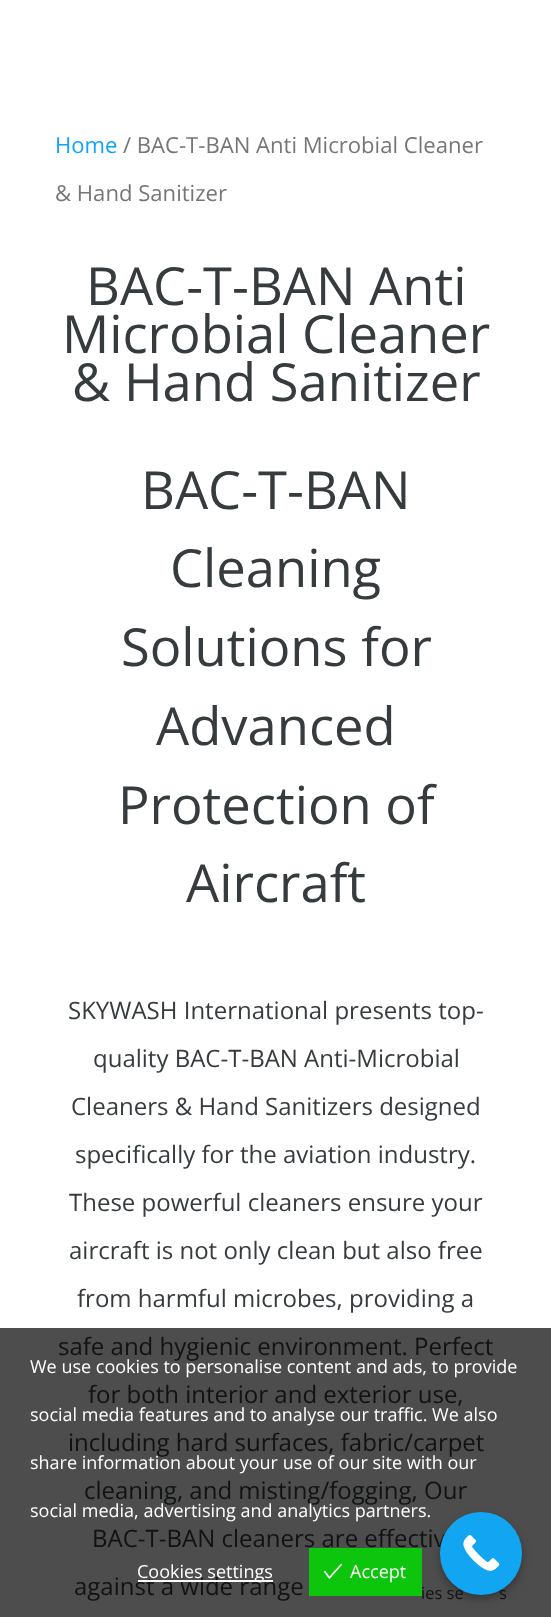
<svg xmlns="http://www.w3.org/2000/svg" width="551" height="1617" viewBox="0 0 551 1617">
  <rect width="100%" height="100%" fill="#fff"/>
  <path d="M0 1328h551v289H0z" fill="#4d4d4d"/>
  <path d="M309 1548h113v48H309z" fill="#0ec50e"/>
  <image x="324" y="1563" width="18" height="16" href="img/1.png"/>
  <rect x="440" y="1517" width="82" height="82" rx="41" fill="#0000004d" filter="blur(4.5px)"/>
  <text x="55" y="153" font-family="Open Sans" font-size="22.1" fill="#0fa3ff">Home</text>
  <g font-family="Open Sans" font-size="22.1" fill="#767676">
    <text x="123" y="153">/ BAC-T-BAN Anti Microbial Cleaner</text>
    <text x="55" y="201">&amp; Hand Sanitizer</text>
  </g>
  <g font-family="Open Sans" font-size="52.5" fill="#363b3e">
    <text x="86" y="305">BAC-T-BAN Anti</text>
    <text x="62" y="353">Microbial Cleaner</text>
    <text x="72" y="401">&amp; Hand Sanitizer</text>
    <text x="141" y="509">BAC-T-BAN</text>
    <text x="170" y="587">Cleaning</text>
    <text x="121" y="666">Solutions for</text>
    <text x="156" y="745">Advanced</text>
    <text x="118" y="824">Protection of</text>
    <text x="186" y="902">Aircraft</text>
  </g>
  <g font-family="Open Sans" font-size="24" fill="#363b3e">
    <text x="68" y="1019">SKYWASH International presents top-</text>
    <text x="93" y="1067">quality BAC-T-BAN Anti-Microbial</text>
    <text x="71" y="1115">Cleaners &amp; Hand Sanitizers designed</text>
    <text x="75" y="1163">specifically for the aviation industry.</text>
    <text x="69" y="1211">These powerful cleaners ensure your</text>
    <text x="69" y="1259">aircraft is not only clean but also free</text>
    <text x="77" y="1307">from harmful microbes, providing a</text>
  </g>
  <g font-family="Open Sans" font-size="24" fill="#101213">
    <text x="58" y="1355">safe and hygienic environment. Perfect</text>
    <text x="88" y="1403">for both interior and exterior use,</text>
    <text x="68" y="1451">including hard surfaces, fabric/carpet</text>
    <text x="84" y="1499">cleaning, and misting/fogging, Our</text>
    <text x="92" y="1547">BAC-T-BAN cleaners are effectiv</text>
    <text x="74" y="1595">against a wide range</text>
  </g>
  <g font-family="Open Sans" font-size="18" fill="#fff">
    <text x="30" y="1373">We use cookies to personalise content and ads, to provide</text>
    <text x="30" y="1421">social media features and to analyse our traffic. We also</text>
    <text x="30" y="1469">share information about your use of our site with our</text>
    <text x="30" y="1517">social media, advertising and analytics partners.</text>
  </g>
  <path d="M138 1580h135v2H138z" fill="#fff"/>
  <g font-family="Open Sans" font-size="18" fill="#fff">
    <text x="137" y="1578">Cookies settings</text>
    <text x="350" y="1578">Accept</text>
  </g>
  <g font-family="Open Sans" font-size="16.5" fill="#101213">
    <text x="421" y="1599">ies se</text>
    <text x="499" y="1599">s</text>
  </g>
  <rect x="440" y="1512" width="82" height="83" rx="41" fill="#11a5f2"/>
  <image x="463" y="1534" width="37" height="37" href="img/2.png"/>
</svg>
